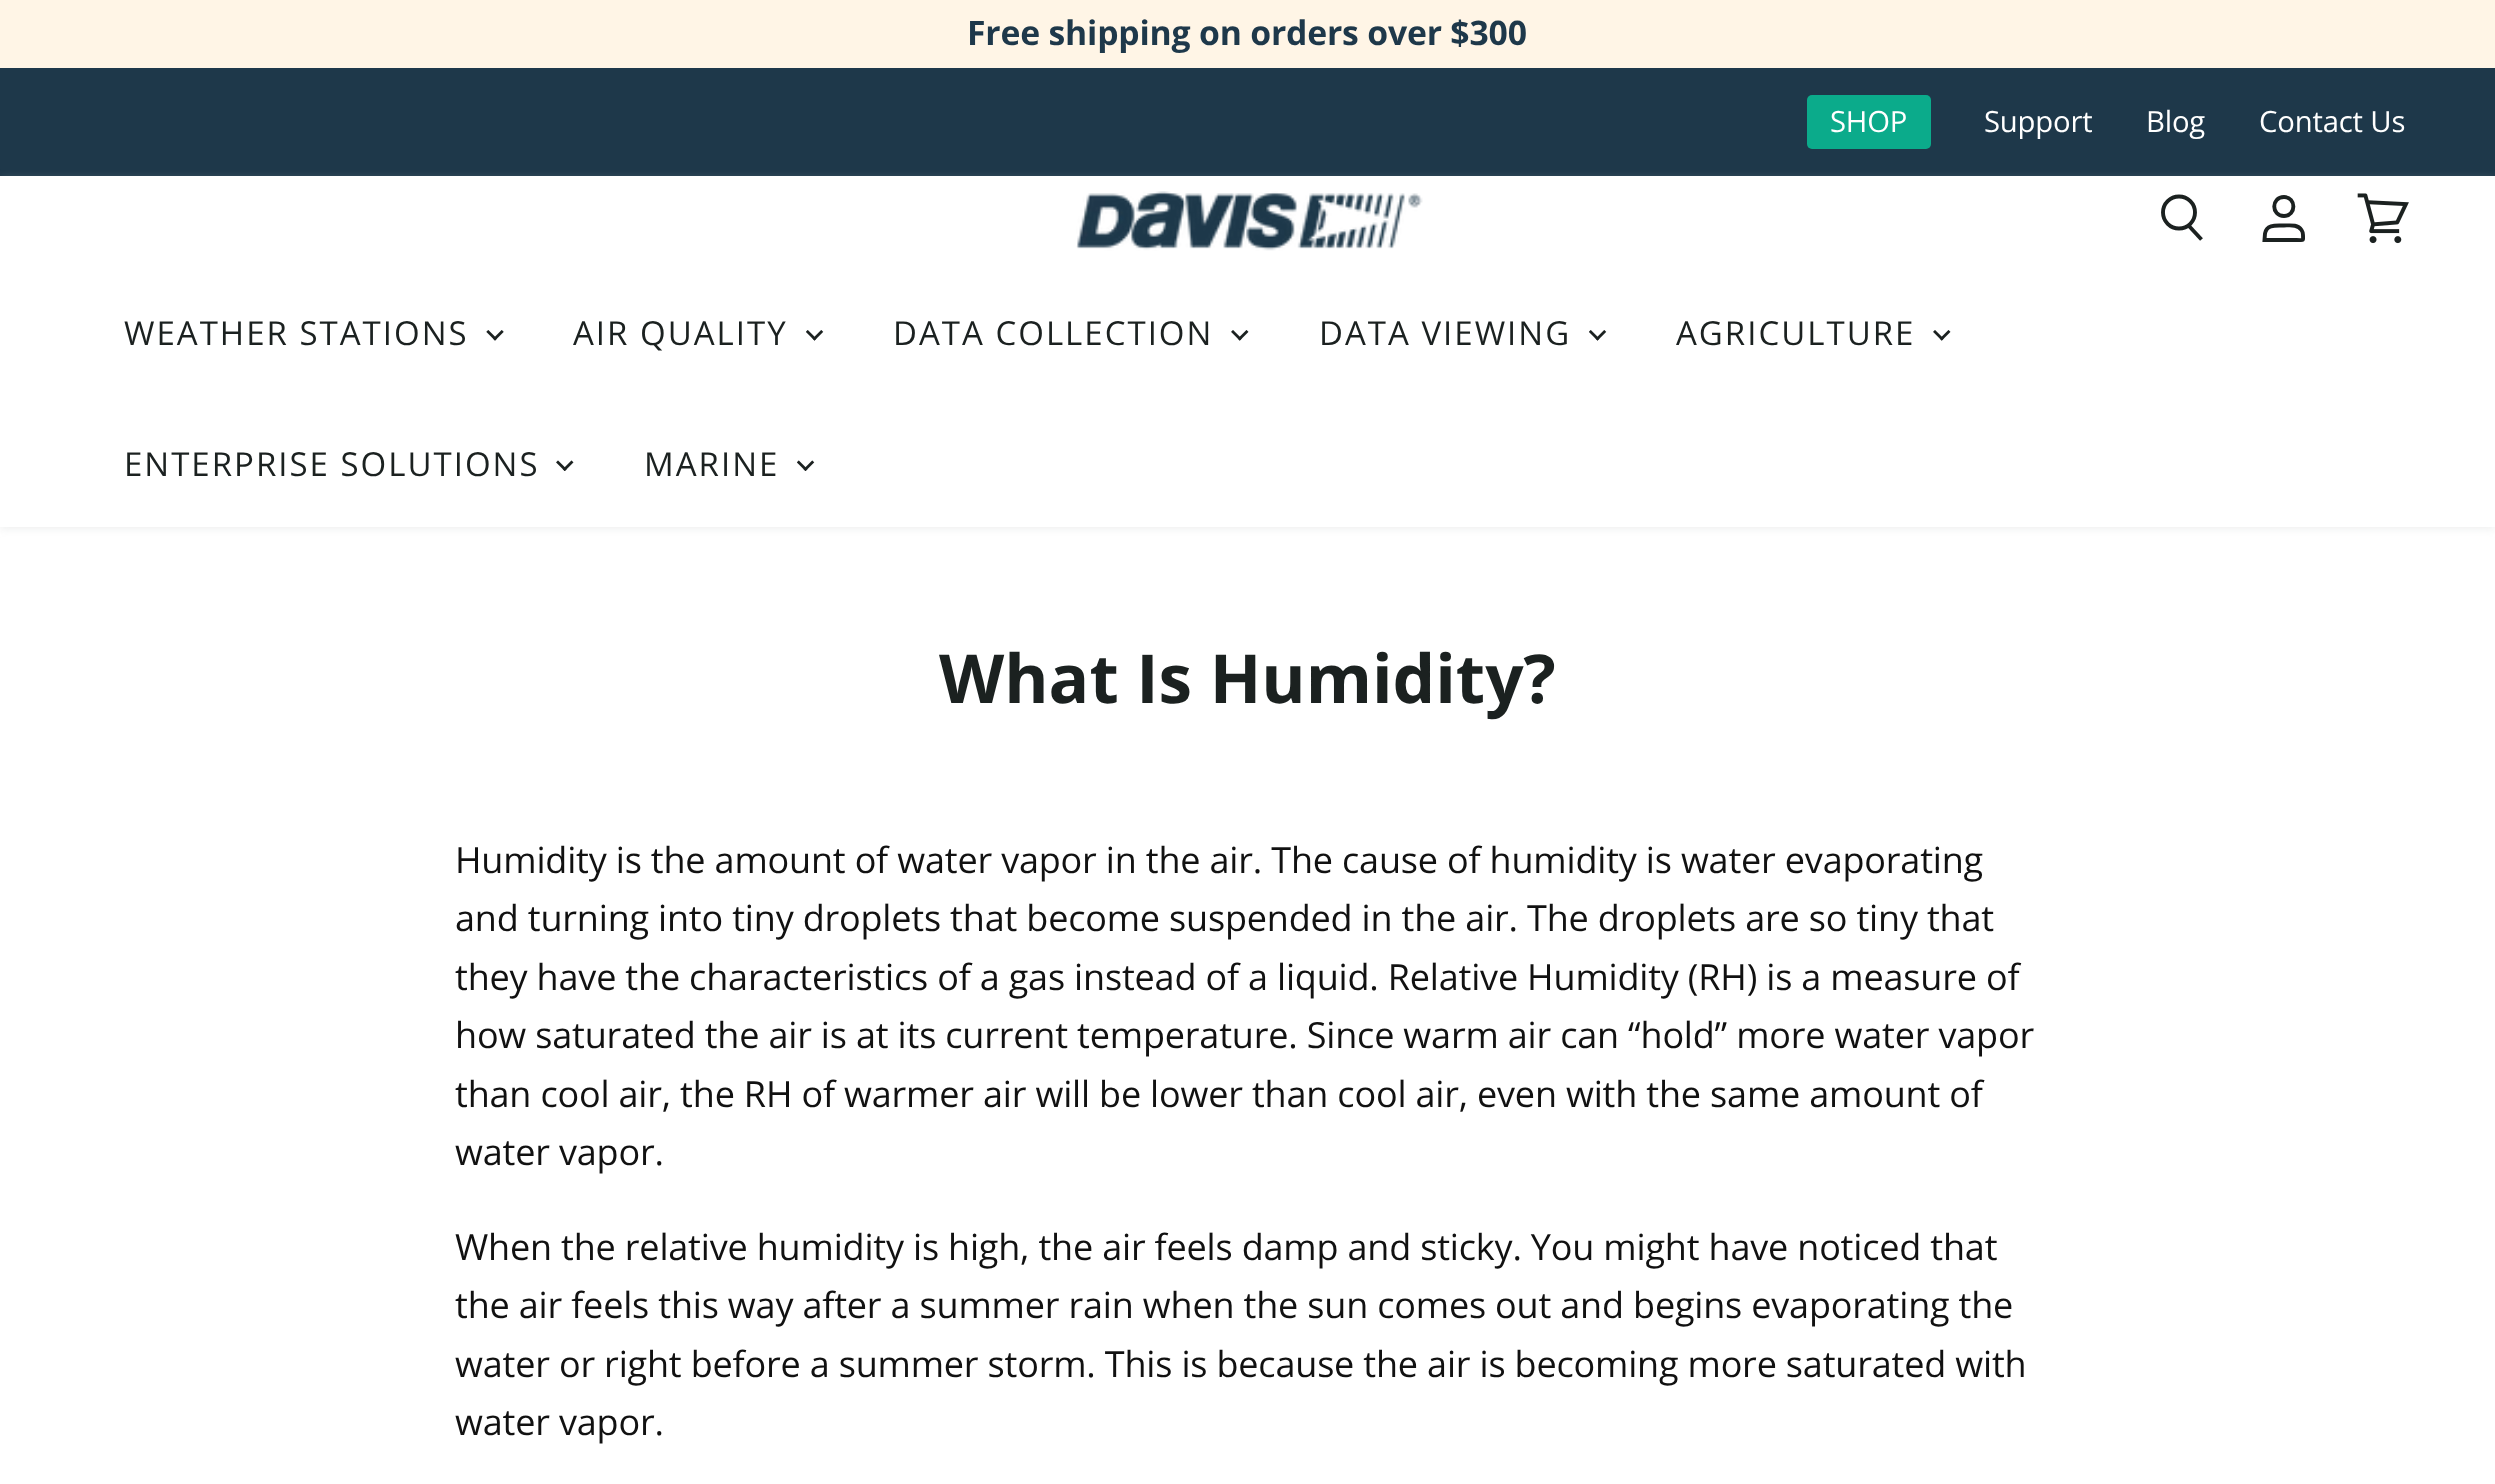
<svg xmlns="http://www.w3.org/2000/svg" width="2495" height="1484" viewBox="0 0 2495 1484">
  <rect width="100%" height="100%" fill="#fff"/>
  <path d="M0 0h2495v68H0z" fill="#fff5e6"/>
  <path d="M0 68h2495v108H0z" fill="#1e384a"/>
  <rect x="1807" y="95" width="124" height="54" rx="5" fill="#0bab8b"/>
  <path d="M0 178h2495v351H0z" fill="#bac0be40" filter="blur(4.5px)"/>
  <path d="M0 176h2495v351H0z" fill="#fff"/>
  <image x="1076" y="191" width="347" height="60" href="img/1.png"/>
  <path d="M2201.5 239.5L2188.5 225.5" fill="none" stroke="#1b2120" stroke-width="3.9"/>
  <circle cx="2179" cy="212.5" r="16" fill="none" stroke="#1b2120" stroke-width="3.9"/>
  <path d="M2303 235C2303 241.5 2304.5 240 2296.5 240H2264.5L2265 233.5C2266.5 224 2276.5 225.5 2284 225.5C2289.5 225.5 2297.5 224 2301.5 230C2302.5 231.5 2303 233 2303 235Z" fill="none" stroke="#1b2120" stroke-width="3.9"/>
  <path d="M2284 216C2296.5 216 2296.5 197 2284 197C2271 197 2271 216 2284 216Z" fill="none" stroke="#1b2120" stroke-width="3.9" stroke-linejoin="round"/>
  <image x="2357" y="193" width="52" height="51" href="img/2.png"/>
  <image x="486" y="330" width="18" height="11" href="img/3.png"/>
  <image x="806" y="330" width="18" height="11" href="img/4.png"/>
  <image x="1231" y="330" width="18" height="11" href="img/5.png"/>
  <image x="1589" y="330" width="18" height="11" href="img/4.png"/>
  <image x="1933" y="330" width="18" height="11" href="img/5.png"/>
  <image x="556" y="460" width="18" height="11" href="img/6.png"/>
  <image x="797" y="460" width="18" height="11" href="img/7.png"/>
  <text x="967" y="45" font-family="Open Sans" font-size="33.75" font-weight="bold" letter-spacing="-0.2" fill="#1e384a">Free shipping on orders over $300</text>
  <g font-family="Open Sans" font-size="29.25" letter-spacing="-0.18" fill="#fff">
    <text x="1830" y="132">SHOP</text>
    <text x="1984" y="132">Support</text>
    <text x="2146" y="132">Blog</text>
    <text x="2259" y="132">Contact Us</text>
  </g>
  <g font-family="Open Sans" font-size="33" letter-spacing="2" fill="#1b2120">
    <text x="124" y="345">WEATHER STATIONS</text>
    <text x="573" y="345">AIR QUALITY</text>
    <text x="893" y="345">DATA COLLECTION</text>
    <text x="1319" y="345">DATA VIEWING</text>
    <text x="1676" y="345">AGRICULTURE</text>
    <text x="124" y="476">ENTERPRISE SOLUTIONS</text>
    <text x="644" y="476">MARINE</text>
  </g>
  <text x="939" y="703" font-family="Open Sans" font-size="67.5" font-weight="bold" fill="#1b2120">What Is Humidity?</text>
  <g font-family="Open Sans" font-size="36" letter-spacing="-0.18" fill="#111">
    <text x="455" y="873">Humidity is the amount of water vapor in the air. The cause of humidity is water evaporating</text>
    <text x="455" y="931">and turning into tiny droplets that become suspended in the air. The droplets are so tiny that</text>
    <text x="455" y="990">they have the characteristics of a gas instead of a liquid. Relative Humidity (RH) is a measure of</text>
    <text x="455" y="1048">how saturated the air is at its current temperature. Since warm air can “hold” more water vapor</text>
    <text x="455" y="1107">than cool air, the RH of warmer air will be lower than cool air, even with the same amount of</text>
    <text x="455" y="1165">water vapor.</text>
    <text x="455" y="1260">When the relative humidity is high, the air feels damp and sticky. You might have noticed that</text>
    <text x="455" y="1318">the air feels this way after a summer rain when the sun comes out and begins evaporating the</text>
    <text x="455" y="1377">water or right before a summer storm. This is because the air is becoming more saturated with</text>
    <text x="455" y="1435">water vapor.</text>
  </g>
</svg>
